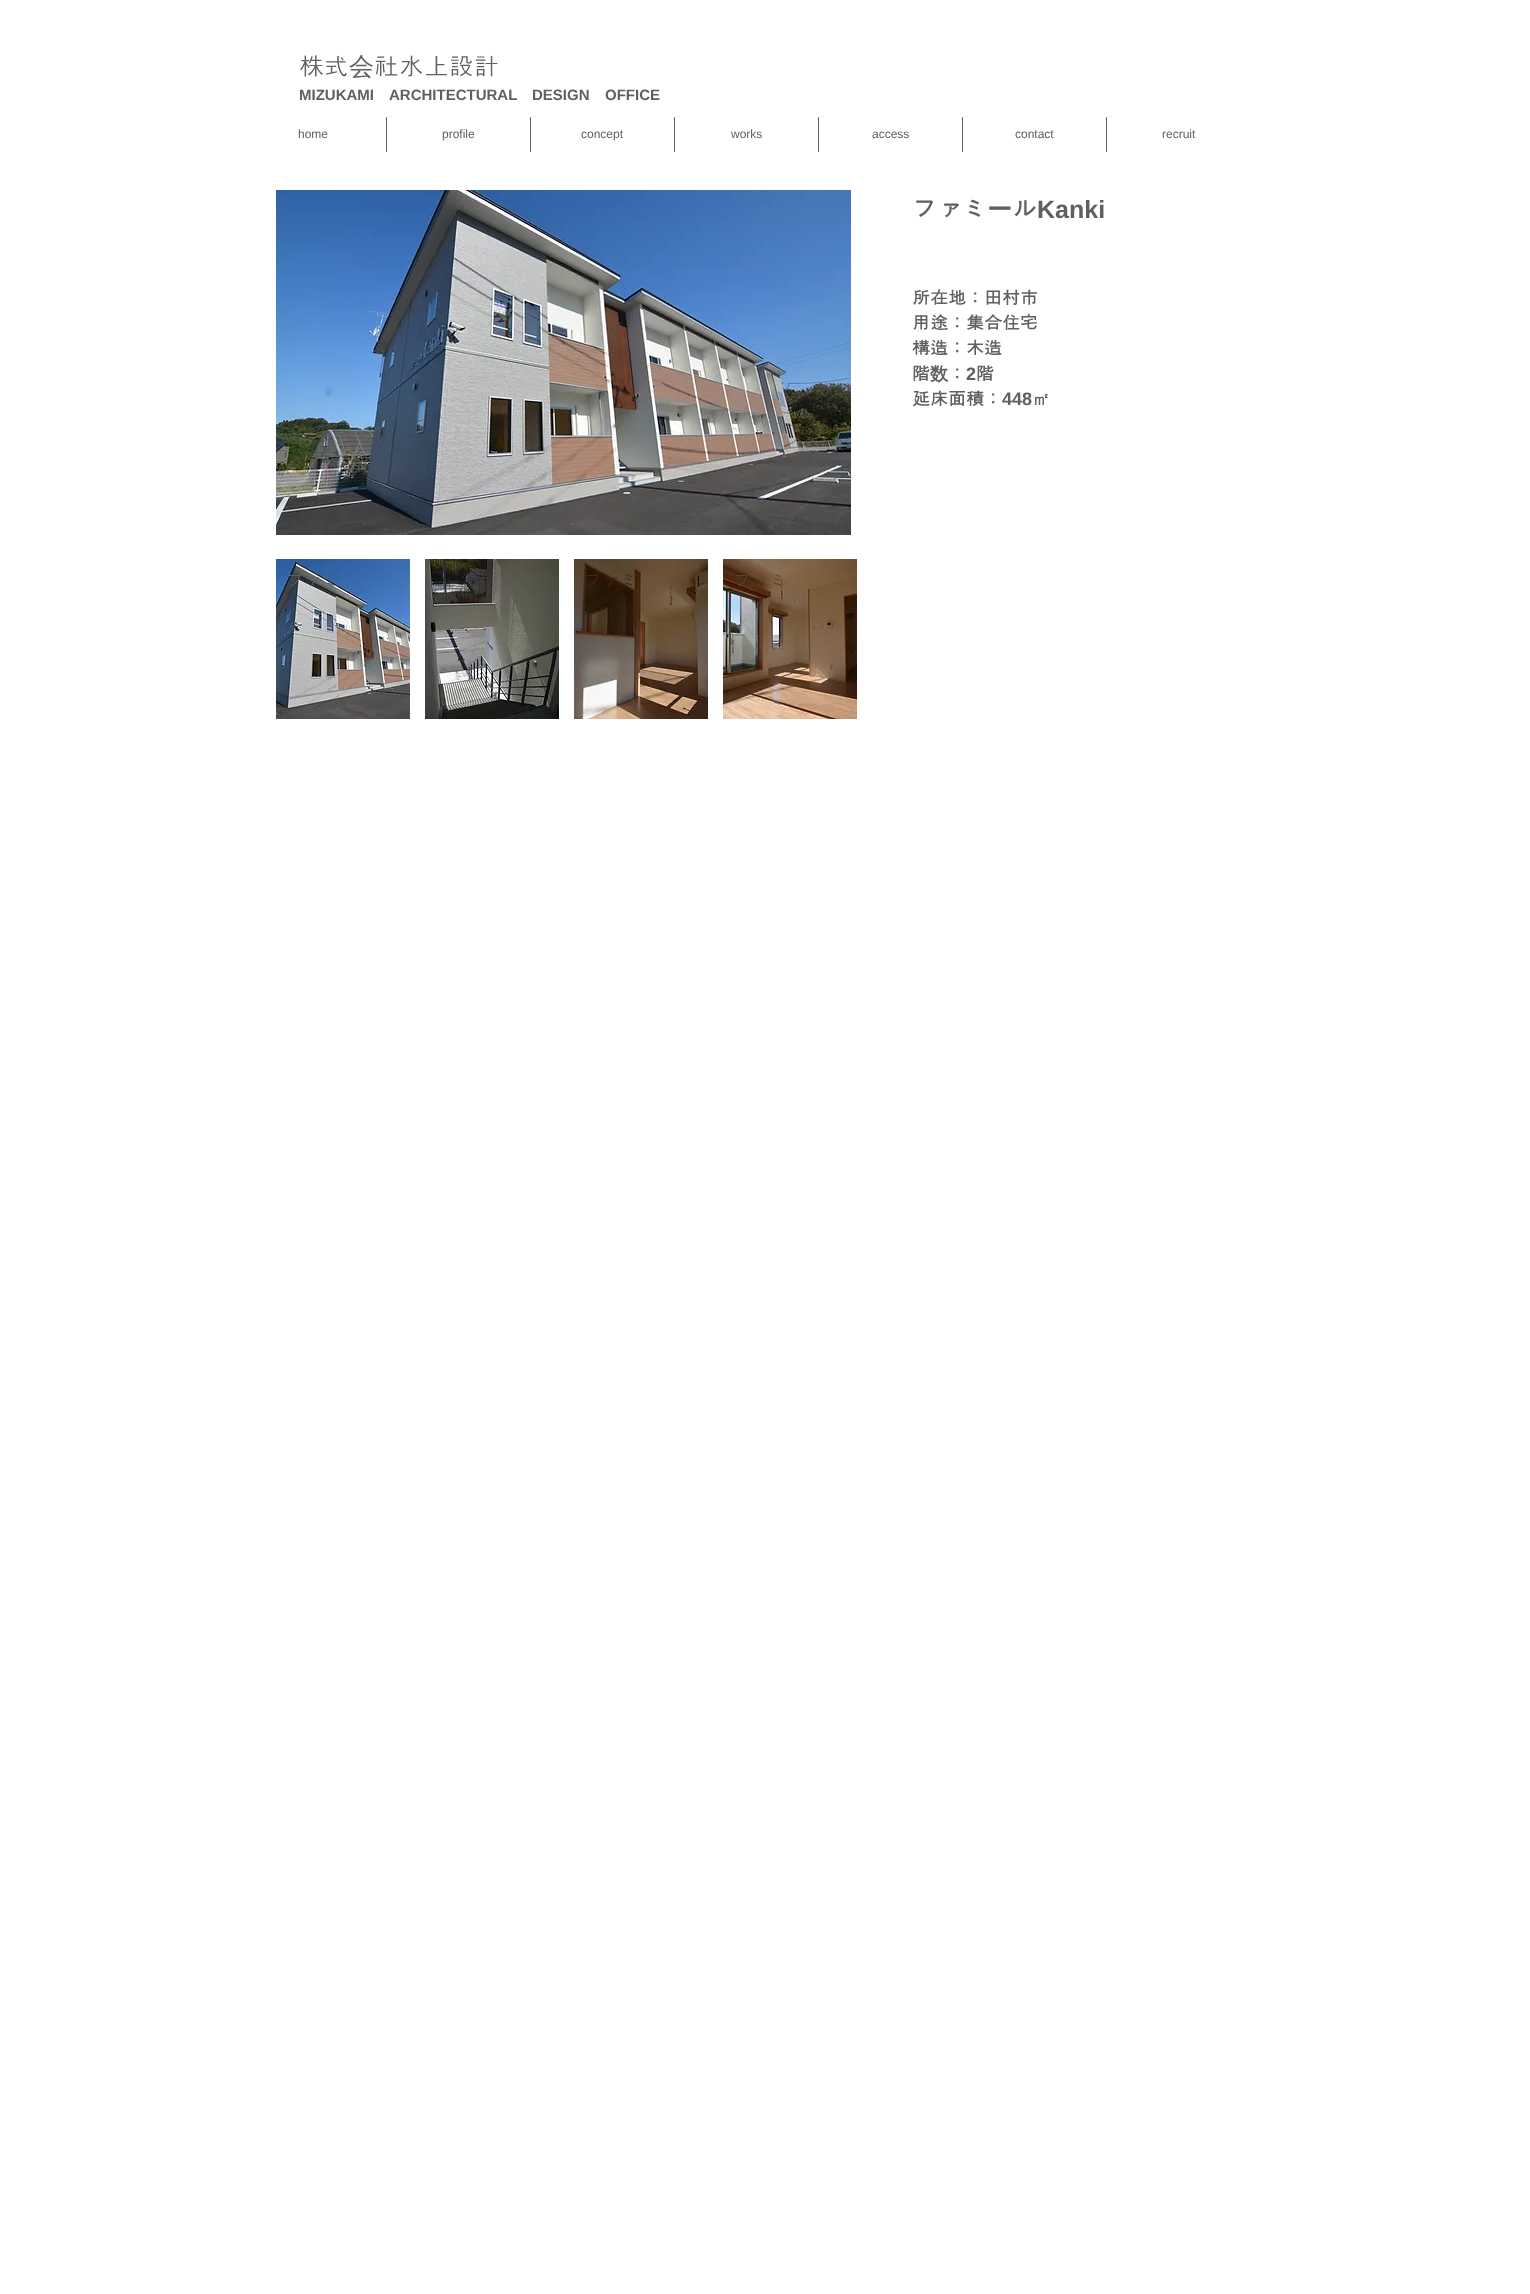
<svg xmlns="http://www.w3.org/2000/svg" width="1530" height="2294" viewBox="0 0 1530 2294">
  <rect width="100%" height="100%" fill="#fff"/>
  <path d="M386 117h1v35H386z" fill="#606060"/>
  <path d="M530 117h1v35H530z" fill="#606060"/>
  <path d="M674 117h1v35H674z" fill="#606060"/>
  <path d="M818 117h1v35H818z" fill="#606060"/>
  <path d="M962 117h1v35H962z" fill="#606060"/>
  <path d="M1106 117h1v35H1106z" fill="#606060"/>
  <image x="276" y="190" width="575" height="345" href="img/1.png"/>
  <image x="276" y="559" width="134" height="160" href="img/2.png"/>
  <image x="425" y="559" width="134" height="160" href="img/3.png"/>
  <image x="574" y="559" width="134" height="160" href="img/4.png"/>
  <image x="723" y="559" width="134" height="160" href="img/5.png"/>
  <text x="299" y="75" font-family="Dotum" font-size="25" fill="#606060">株式</text>
  <text x="349" y="75" font-family="WenQuanYi Zen Hei" font-size="25" font-weight="500" fill="#606060">会</text>
  <text x="374" y="75" font-family="Dotum" font-size="25" fill="#606060">社水上設計</text>
  <g font-family="Liberation Sans" font-size="15" font-weight="bold" fill="#606060">
    <text x="299" y="100">MIZUKAMI</text>
    <text x="389" y="100">ARCHITECTURAL</text>
    <text x="532" y="100">DESIGN</text>
    <text x="605" y="100">OFFICE</text>
  </g>
  <g font-family="Liberation Sans" font-size="12" fill="#606060">
    <text x="298" y="138">home</text>
    <text x="442" y="138">profile</text>
    <text x="581" y="138">concept</text>
    <text x="731" y="138">works</text>
    <text x="872" y="138">access</text>
    <text x="1015" y="138">contact</text>
    <text x="1162" y="138">recruit</text>
  </g>
  <text x="912" y="218" font-family="Dotum" font-size="25" font-weight="bold" fill="#606060">ファミ</text>
  <text x="987" y="218" font-family="WenQuanYi Zen Hei" font-size="25" font-weight="bold" fill="#606060">ー</text>
  <text x="1012" y="218" font-family="Dotum" font-size="25" font-weight="bold" fill="#606060">ル</text>
  <text x="1037" y="218" font-family="Liberation Sans" font-size="25" font-weight="bold" fill="#606060">Kanki</text>
  <g font-family="Dotum" font-size="18" font-weight="bold" fill="#606060">
    <text x="912" y="304">所在地：田村市</text>
    <text x="912" y="329">用途：集合住宅</text>
    <text x="912" y="354">構造：木造</text>
    <text x="912" y="380">階</text>
  </g>
  <text x="930" y="380" font-family="WenQuanYi Zen Hei" font-size="18" font-weight="bold" fill="#606060">数</text>
  <text x="948" y="380" font-family="Dotum" font-size="18" font-weight="bold" fill="#606060">：</text>
  <text x="966" y="380" font-family="Liberation Sans" font-size="18" font-weight="bold" fill="#606060">2</text>
  <g font-family="Dotum" font-size="18" font-weight="bold" fill="#606060">
    <text x="976" y="380">階</text>
    <text x="912" y="405">延床面積：</text>
  </g>
  <text x="1002" y="405" font-family="Liberation Sans" font-size="18" font-weight="bold" fill="#606060">448</text>
  <text x="1032" y="405" font-family="Dotum" font-size="18" font-weight="bold" fill="#606060">㎡</text>
  <text x="286" y="587" font-family="Dotum" font-size="18" fill="#566171">ファミ</text>
  <text x="584" y="587" font-family="Dotum" font-size="18" fill="#3f2a18">ファミ</text>
  <text x="733" y="587" font-family="Dotum" font-size="18" fill="#614329">ファミ</text>
</svg>
